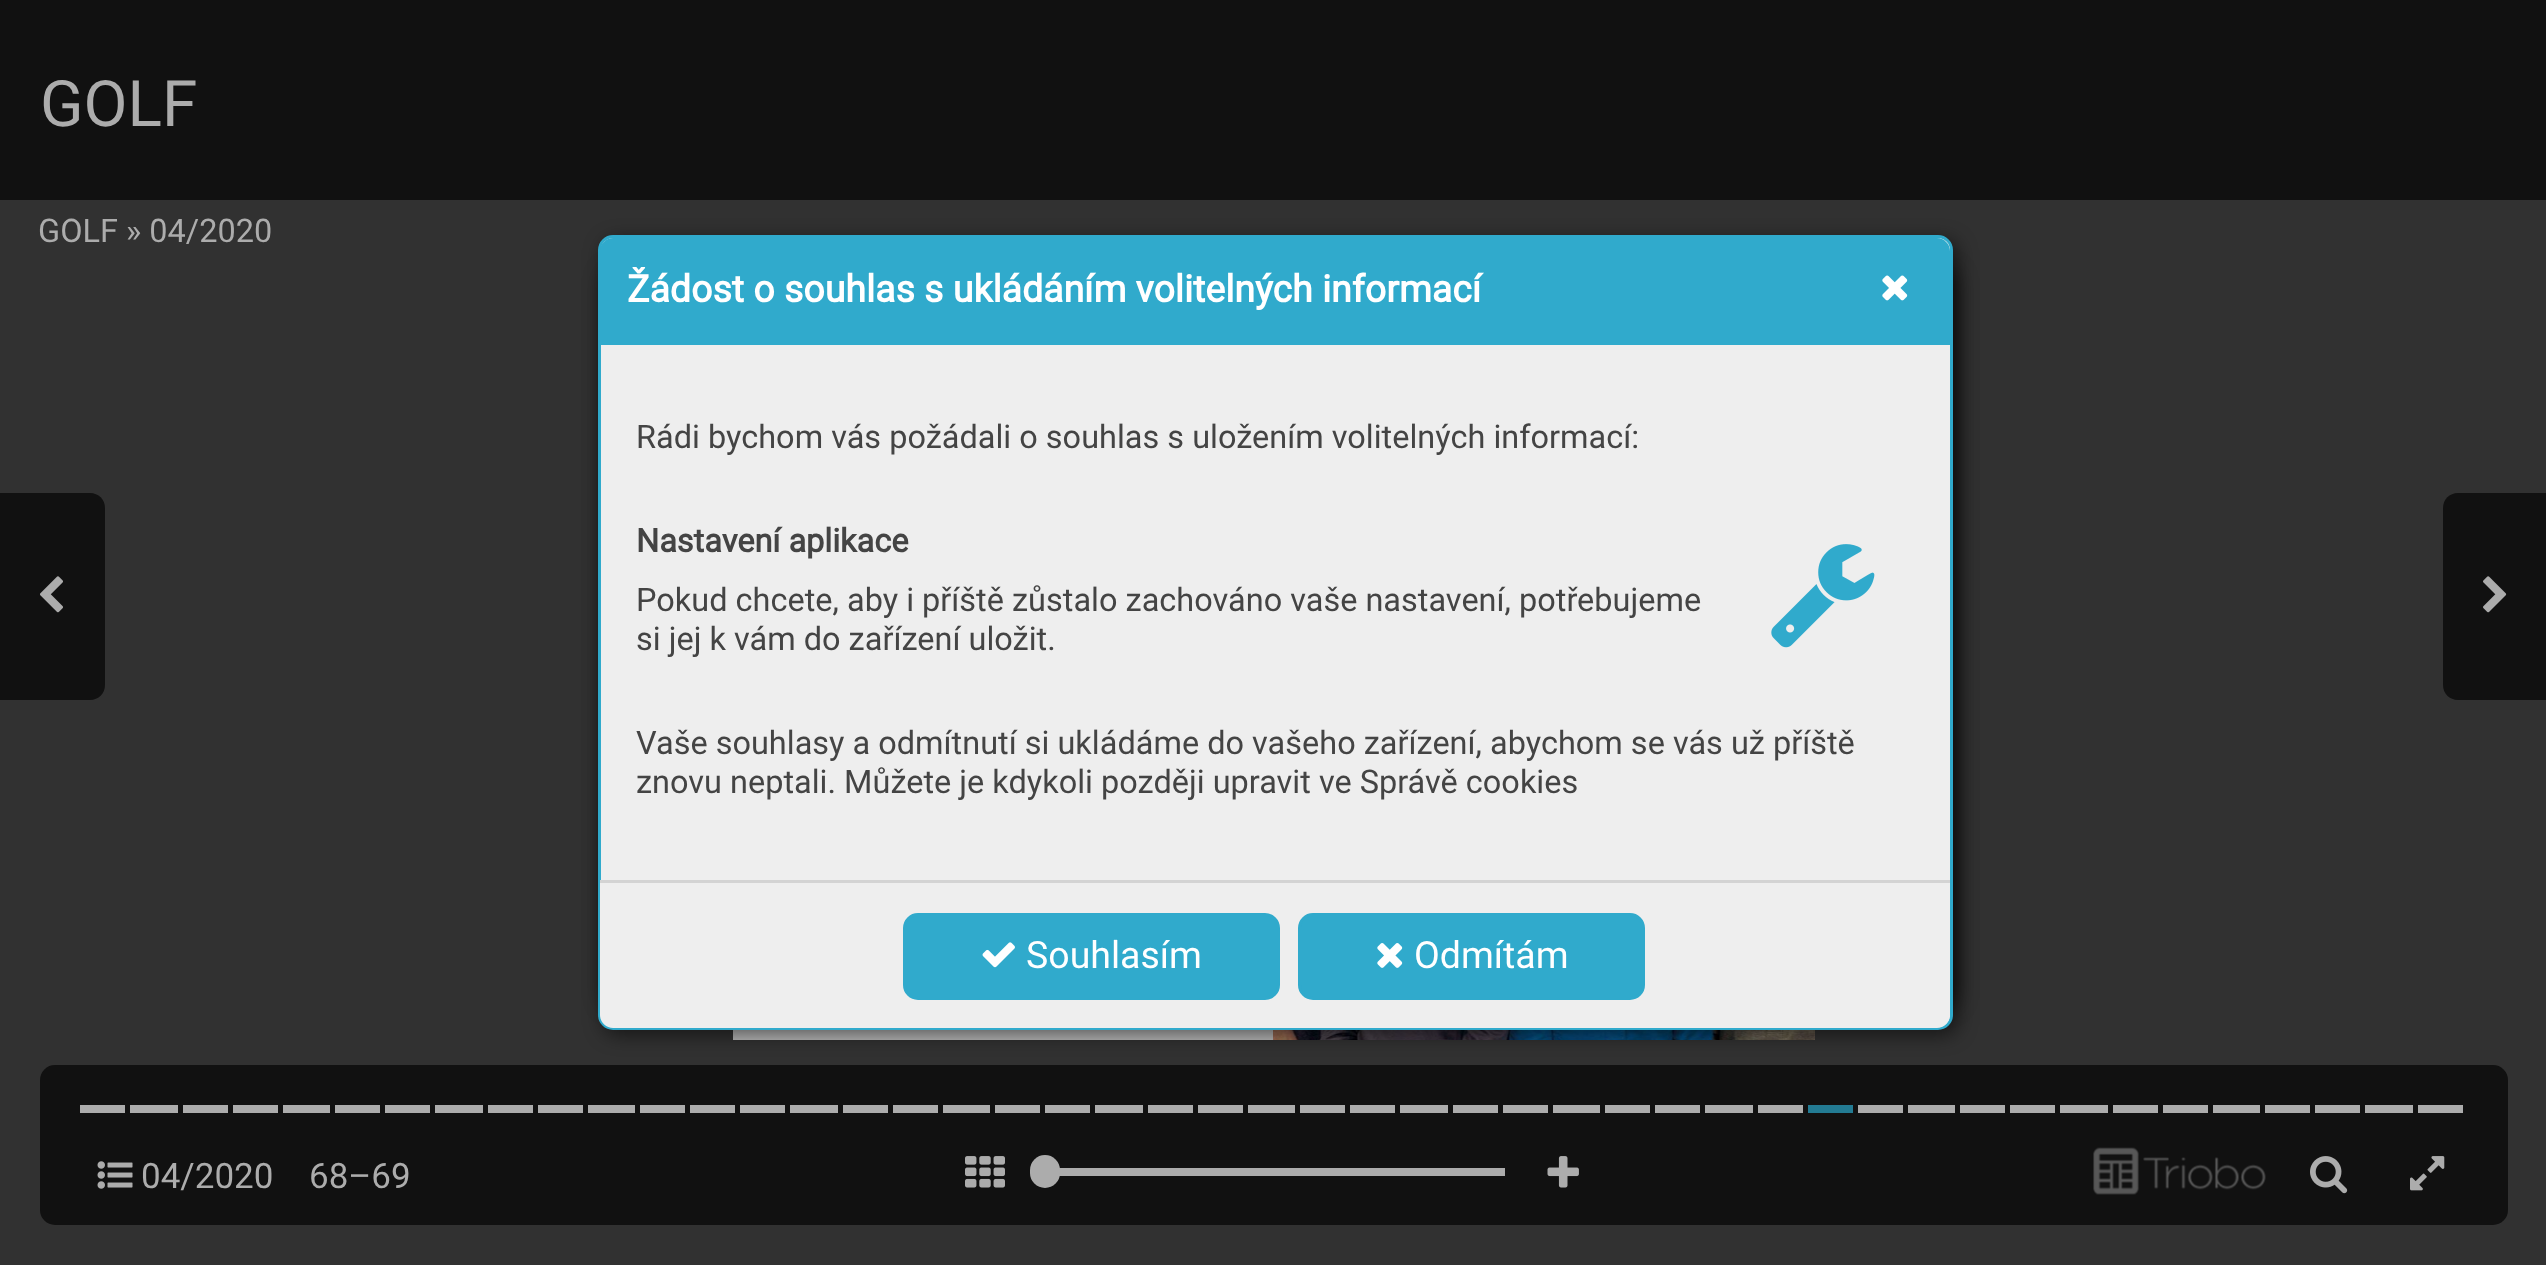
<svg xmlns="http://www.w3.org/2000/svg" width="2546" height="1265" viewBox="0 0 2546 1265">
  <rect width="100%" height="100%" fill="#313131"/>
  <path d="M0 0h2546v200H0z" fill="#111"/>
  <path d="M0 493H90C98.5 493 105 499.5 105 508V685C105 693.5 98.5 700 90 700H0Z" fill="#111"/>
  <image x="40" y="576" width="23" height="37" href="img/1.png"/>
  <path d="M2458 493H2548V700H2458C2449.5 700 2443 693.5 2443 685V508C2443 499.5 2449.5 493 2458 493Z" fill="#111"/>
  <image x="2483" y="576" width="24" height="37" href="img/2.png"/>
  <rect x="40" y="1065" width="2468" height="160" rx="15" fill="#111"/>
  <path d="M80 1105h45v8H80z" fill="#acacac"/>
  <path d="M130 1105h48v8H130z" fill="#acacac"/>
  <path d="M183 1105h45v8H183z" fill="#acacac"/>
  <path d="M233 1105h45v8H233z" fill="#acacac"/>
  <path d="M283 1105h47v8H283z" fill="#acacac"/>
  <path d="M335 1105h45v8H335z" fill="#acacac"/>
  <path d="M385 1105h45v8H385z" fill="#acacac"/>
  <path d="M435 1105h48v8H435z" fill="#acacac"/>
  <path d="M488 1105h45v8H488z" fill="#acacac"/>
  <path d="M538 1105h45v8H538z" fill="#acacac"/>
  <path d="M588 1105h47v8H588z" fill="#acacac"/>
  <path d="M640 1105h45v8H640z" fill="#acacac"/>
  <path d="M690 1105h45v8H690z" fill="#acacac"/>
  <path d="M740 1105h45v8H740z" fill="#acacac"/>
  <path d="M790 1105h48v8H790z" fill="#acacac"/>
  <path d="M843 1105h45v8H843z" fill="#acacac"/>
  <path d="M893 1105h45v8H893z" fill="#acacac"/>
  <path d="M943 1105h47v8H943z" fill="#acacac"/>
  <path d="M995 1105h45v8H995z" fill="#acacac"/>
  <path d="M1045 1105h45v8H1045z" fill="#acacac"/>
  <path d="M1095 1105h48v8H1095z" fill="#acacac"/>
  <path d="M1148 1105h45v8H1148z" fill="#acacac"/>
  <path d="M1198 1105h45v8H1198z" fill="#acacac"/>
  <path d="M1248 1105h47v8H1248z" fill="#acacac"/>
  <path d="M1300 1105h45v8H1300z" fill="#acacac"/>
  <path d="M1350 1105h45v8H1350z" fill="#acacac"/>
  <path d="M1400 1105h48v8H1400z" fill="#acacac"/>
  <path d="M1453 1105h45v8H1453z" fill="#acacac"/>
  <path d="M1503 1105h45v8H1503z" fill="#acacac"/>
  <path d="M1553 1105h47v8H1553z" fill="#acacac"/>
  <path d="M1605 1105h45v8H1605z" fill="#acacac"/>
  <path d="M1655 1105h45v8H1655z" fill="#acacac"/>
  <path d="M1705 1105h48v8H1705z" fill="#acacac"/>
  <path d="M1758 1105h45v8H1758z" fill="#acacac"/>
  <path d="M1858 1105h45v8H1858z" fill="#acacac"/>
  <path d="M1908 1105h47v8H1908z" fill="#acacac"/>
  <path d="M1960 1105h45v8H1960z" fill="#acacac"/>
  <path d="M2010 1105h45v8H2010z" fill="#acacac"/>
  <path d="M2060 1105h48v8H2060z" fill="#acacac"/>
  <path d="M2113 1105h45v8H2113z" fill="#acacac"/>
  <path d="M2163 1105h45v8H2163z" fill="#acacac"/>
  <path d="M2213 1105h47v8H2213z" fill="#acacac"/>
  <path d="M2265 1105h45v8H2265z" fill="#acacac"/>
  <path d="M2315 1105h45v8H2315z" fill="#acacac"/>
  <path d="M2365 1105h48v8H2365z" fill="#acacac"/>
  <path d="M2418 1105h45v8H2418z" fill="#acacac"/>
  <path d="M1808 1105h45v8H1808z" fill="#237b93"/>
  <image x="97" y="1161" width="36" height="28" href="img/3.png"/>
  <image x="965" y="1156" width="40" height="32" href="img/4.png"/>
  <path d="M1059 1168h446v8H1059z" fill="#acacac"/>
  <rect x="1030" y="1155" width="30" height="33" rx="15" fill="#acacac"/>
  <image x="1547" y="1156" width="32" height="32" href="img/5.png"/>
  <image x="2093" y="1147" width="173" height="48" href="img/6.png"/>
  <image x="2310" y="1156" width="38" height="38" href="img/7.png"/>
  <image x="2410" y="1156" width="35" height="35" href="img/8.png"/>
  <path d="M733 1030h540v10H733z" fill="#b8b8b8"/>
  <image x="1813" y="1030" width="2" height="10" href="img/10.png"/>
  <image x="1273" y="1030" width="542" height="10" href="img/9.png"/>
  <rect x="603" y="268" width="1355" height="740" rx="15" fill="#00000087" filter="blur(9.5px)"/>
  <rect x="603" y="240" width="1355" height="795" rx="15" fill="#00000087" filter="blur(9.5px)"/>
  <rect x="599.5" y="236.5" width="1352" height="792" rx="13.5" fill="#eee" stroke="#30aacc" stroke-width="3"/>
  <path d="M613 238H1937C1944 238 1950 244 1950 251V345H600V251C600 244 606 238 613 238Z" fill="#30aacc"/>
  <image x="1882" y="275" width="26" height="26" href="img/11.png"/>
  <image x="1771" y="544" width="104" height="104" href="img/12.png"/>
  <path d="M600 880H1950V1015C1950 1022 1944 1028 1937 1028H613C606 1028 600 1022 600 1015Z" fill="#eee"/>
  <path d="M600 880h1350v3H600z" fill="#d3d3d3"/>
  <rect x="904.5" y="914.5" width="374" height="84" rx="13.5" fill="#30aacc" stroke="#30aacc" stroke-width="3"/>
  <image x="982" y="942" width="33" height="26" href="img/13.png"/>
  <rect x="1299.5" y="914.5" width="344" height="84" rx="13.5" fill="#30aacc" stroke="#30aacc" stroke-width="3"/>
  <image x="1377" y="943" width="26" height="25" href="img/14.png"/>
  <text x="40" y="126" font-family="Roboto" font-size="64" fill="#acacac">GOLF</text>
  <text x="38" y="242" font-family="Roboto" font-size="32.5" fill="#acacac">GOLF » 04/2020</text>
  <g font-family="Roboto" font-size="35" fill="#acacac">
    <text x="141" y="1188">04/2020</text>
    <text x="309" y="1188">68–69</text>
  </g>
  <text x="627" y="302" font-family="Roboto" font-size="37.5" font-weight="bold" fill="#fff">Žádost o souhlas s ukládáním volitelných informací</text>
  <text x="636" y="448" font-family="Roboto" font-size="32.5" fill="#444">Rádi bychom vás požádali o souhlas s uložením volitelných informací:</text>
  <text x="636" y="552" font-family="Roboto" font-size="32.5" font-weight="bold" fill="#444">Nastavení aplikace</text>
  <g font-family="Roboto" font-size="32.5" fill="#444">
    <text x="636" y="611">Pokud chcete, aby i příště zůstalo zachováno vaše nastavení, potřebujeme</text>
    <text x="636" y="650">si jej k vám do zařízení uložit.</text>
    <text x="636" y="754">Vaše souhlasy a odmítnutí si ukládáme do vašeho zařízení, abychom se vás už příště</text>
    <text x="636" y="793">znovu neptali. Můžete je kdykoli později upravit ve Správě cookies</text>
  </g>
  <g font-family="Roboto" font-size="37.5" fill="#fff">
    <text x="1026" y="968">Souhlasím</text>
    <text x="1414" y="968">Odmítám</text>
  </g>
</svg>
